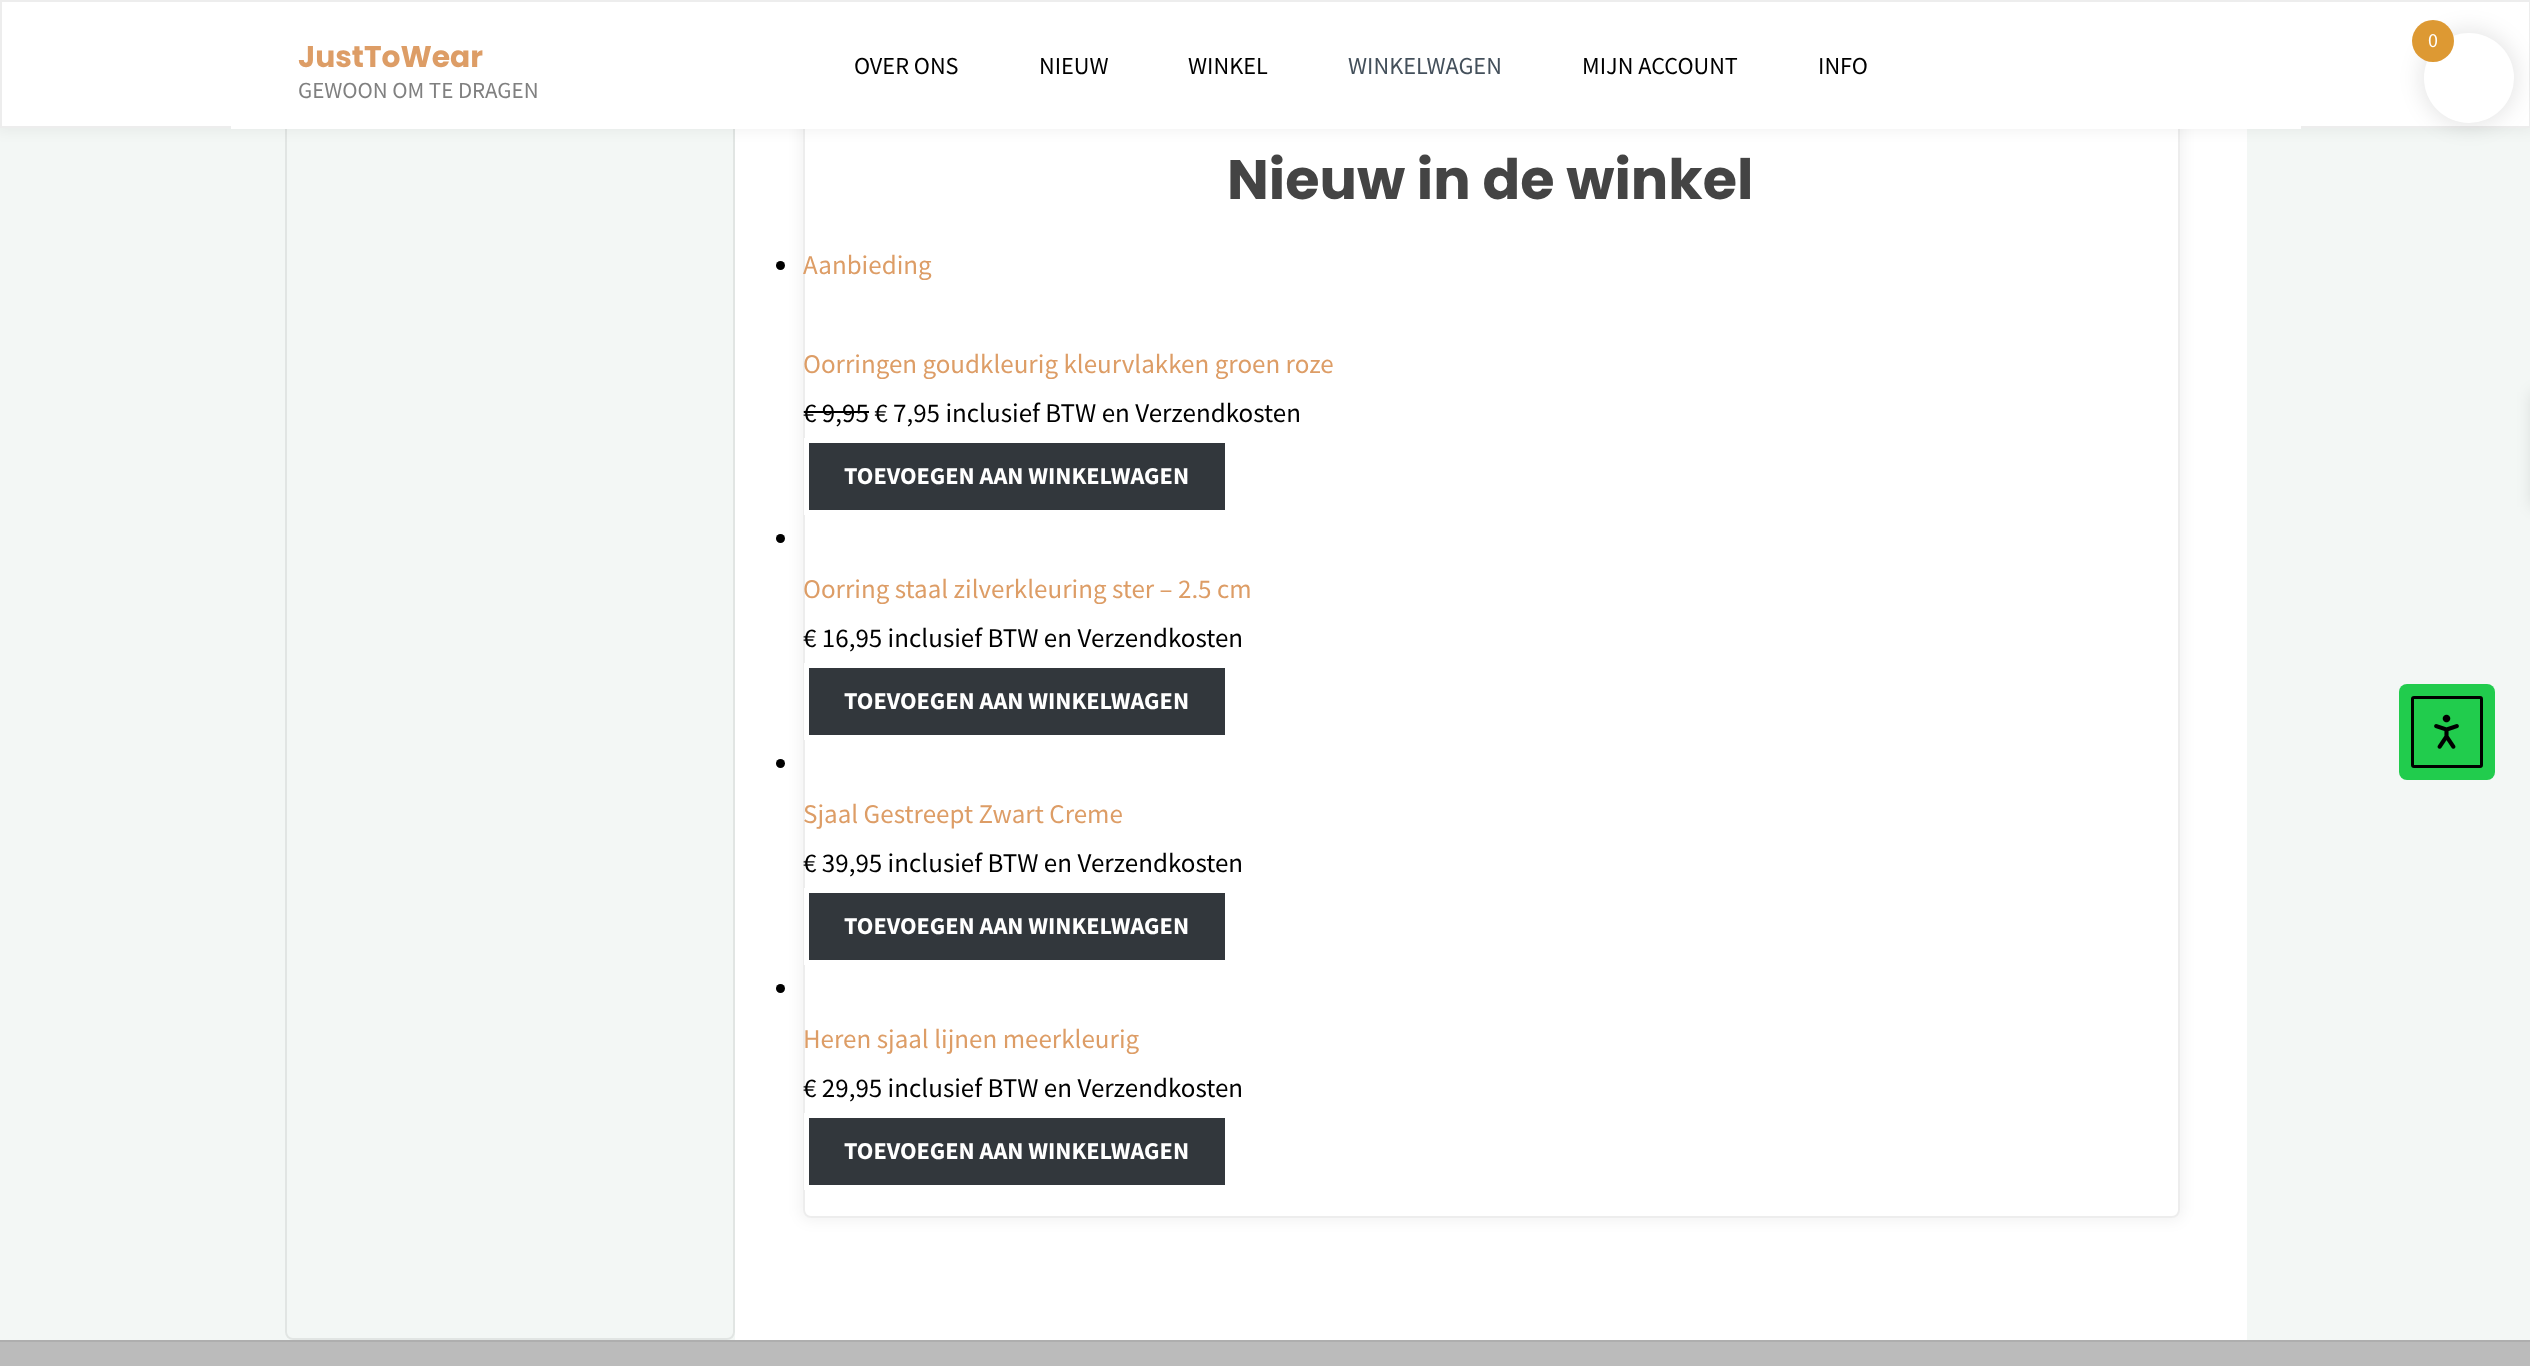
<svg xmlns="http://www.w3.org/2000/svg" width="2530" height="1366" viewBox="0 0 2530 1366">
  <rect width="100%" height="100%" fill="#f3f7f5"/>
  <rect x="286" y="-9" width="448" height="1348" rx="7" fill="none" stroke="#00000012" stroke-width="2"/>
  <path d="M735 129h1512v1211H735z" fill="#fff"/>
  <rect x="800" y="-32" width="1383" height="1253" rx="11" fill="#0000000d" filter="blur(7px)"/>
  <rect x="803" y="-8" width="1377" height="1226" rx="8" fill="#fff"/>
  <rect x="804" y="-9" width="1375" height="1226" rx="7" fill="none" stroke="#00000012" stroke-width="2"/>
  <path d="M-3 -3h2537v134H-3z" fill="#0000000d" filter="blur(7px)"/>
  <path d="M1 1h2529v126H1z" fill="#fff" stroke="#ededed" stroke-width="2"/>
  <rect x="2421" y="30" width="96" height="96" rx="48" fill="#0000001a" filter="blur(11px)"/>
  <circle cx="2469" cy="78" r="45" fill="#fff"/>
  <circle cx="2433" cy="41" r="21" fill="#d93"/>
  <path d="M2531 392h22v115H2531z" fill="#0000001a" filter="blur(7.5px)"/>
  <path d="M231 126h2070v3H231z" fill="#fff"/>
  <circle cx="780.5" cy="265.5" r="4.5" fill="#000"/>
  <path d="M804 411h65v2H804z" fill="#000"/>
  <path d="M806.5 440.5h421v72H806.5z" fill="#32373c" stroke="#fff" stroke-width="5"/>
  <circle cx="780.5" cy="538.5" r="4.5" fill="#000"/>
  <path d="M806.5 665.5h421v72H806.5z" fill="#32373c" stroke="#fff" stroke-width="5"/>
  <circle cx="780.5" cy="763.5" r="4.5" fill="#000"/>
  <path d="M806.5 890.5h421v72H806.5z" fill="#32373c" stroke="#fff" stroke-width="5"/>
  <circle cx="780.5" cy="988.5" r="4.5" fill="#000"/>
  <path d="M806.5 1115.5h421v72H806.5z" fill="#32373c" stroke="#fff" stroke-width="5"/>
  <path d="M0 1342h2530v24H0z" fill="#bbb"/>
  <path d="M0 1340h2530v2H0z" fill="#aeaeae"/>
  <rect x="2399" y="684" width="96" height="96" rx="8" fill="#21cc4d"/>
  <rect x="2412.5" y="697.5" width="69" height="69" rx="1.5" fill="none" stroke="#000" stroke-width="3"/>
  <image x="2434" y="714" width="25" height="35" href="img/1.png"/>
  <text x="2428" y="47" font-family="Source Sans Pro" font-size="20" fill="#fff">0</text>
  <text x="298" y="67" font-family="Poppins" font-size="29.75" font-weight="bold" fill="#dd9d66">JustToWear</text>
  <text x="298" y="98" font-family="Source Sans Pro" font-size="23" fill="#808080">GEWOON OM TE DRAGEN</text>
  <g font-family="Source Sans Pro" font-size="24.25" fill="#000">
    <text x="854" y="74">OVER ONS</text>
    <text x="1039" y="74">NIEUW</text>
    <text x="1188" y="74">WINKEL</text>
  </g>
  <text x="1348" y="74" font-family="Source Sans Pro" font-size="24.25" fill="#44505b">WINKELWAGEN</text>
  <g font-family="Source Sans Pro" font-size="24.25" fill="#000">
    <text x="1582" y="74">MIJN ACCOUNT</text>
    <text x="1818" y="74">INFO</text>
  </g>
  <text x="1227" y="199" font-family="Poppins" font-size="55.6" font-weight="bold" fill="#444">Nieuw in de winkel</text>
  <g font-family="Source Sans Pro" font-size="27" fill="#dd9d66">
    <text x="803" y="274">Aanbieding</text>
    <text x="803" y="373">Oorringen goudkleurig kleurvlakken groen roze</text>
  </g>
  <text x="803" y="422" font-family="Source Sans Pro" font-size="27" fill="#000">€ 9,95 € 7,95 inclusief BTW en Verzendkosten</text>
  <text x="844" y="484" font-family="Source Sans Pro" font-size="24.25" font-weight="bold" fill="#fff">TOEVOEGEN AAN WINKELWAGEN</text>
  <text x="803" y="598" font-family="Source Sans Pro" font-size="27" fill="#dd9d66">Oorring staal zilverkleuring ster – 2.5 cm</text>
  <text x="803" y="647" font-family="Source Sans Pro" font-size="27" fill="#000">€ 16,95 inclusief BTW en Verzendkosten</text>
  <text x="844" y="709" font-family="Source Sans Pro" font-size="24.25" font-weight="bold" fill="#fff">TOEVOEGEN AAN WINKELWAGEN</text>
  <text x="803" y="823" font-family="Source Sans Pro" font-size="27" fill="#dd9d66">Sjaal Gestreept Zwart Creme</text>
  <text x="803" y="872" font-family="Source Sans Pro" font-size="27" fill="#000">€ 39,95 inclusief BTW en Verzendkosten</text>
  <text x="844" y="934" font-family="Source Sans Pro" font-size="24.25" font-weight="bold" fill="#fff">TOEVOEGEN AAN WINKELWAGEN</text>
  <text x="803" y="1048" font-family="Source Sans Pro" font-size="27" fill="#dd9d66">Heren sjaal lijnen meerkleurig</text>
  <text x="803" y="1097" font-family="Source Sans Pro" font-size="27" fill="#000">€ 29,95 inclusief BTW en Verzendkosten</text>
  <text x="844" y="1159" font-family="Source Sans Pro" font-size="24.25" font-weight="bold" fill="#fff">TOEVOEGEN AAN WINKELWAGEN</text>
</svg>
